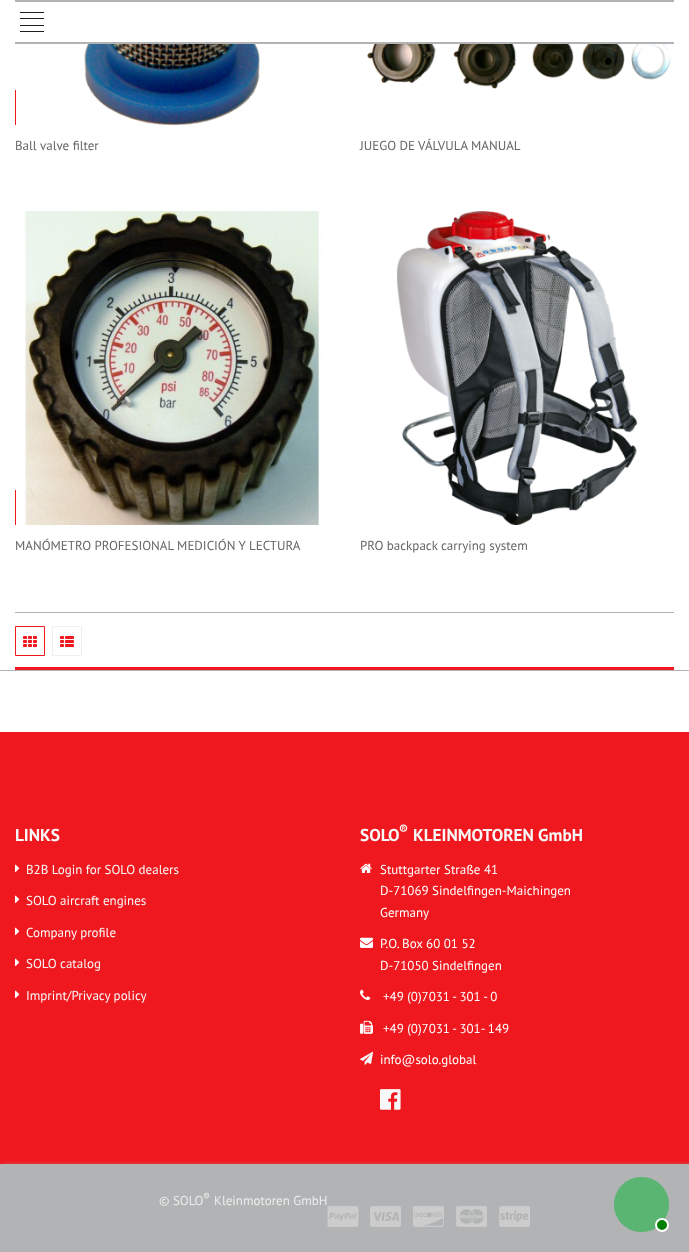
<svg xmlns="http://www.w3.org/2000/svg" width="689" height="1252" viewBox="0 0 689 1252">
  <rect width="100%" height="100%" fill="#fff"/>
  <path d="M15 0h659v2H15z" fill="#b1b3b4"/>
  <path d="M15 42h659v2H15z" fill="#b1b3b4"/>
  <path d="M20 12h24v1H20z" fill="#1f1f1f"/>
  <path d="M20 25h24v1H20z" fill="#1f1f1f"/>
  <path d="M20 18h24v1H20z" fill="#1f1f1f"/>
  <path d="M20 31h24v1H20z" fill="#1f1f1f"/>
  <image x="84" y="44" width="176" height="81" href="img/1.png"/>
  <path d="M15 90h1v35H15z" fill="#ef181e"/>
  <image x="367" y="44" width="304" height="45" href="img/2.png"/>
  <image x="24" y="211" width="300" height="314" href="img/3.png"/>
  <path d="M15 490h1v35H15z" fill="#ef181e"/>
  <image x="396" y="211" width="242" height="314" href="img/4.png"/>
  <path d="M15 612h659v1H15z" fill="#b1b3b4"/>
  <path d="M15 667h659v3H15z" fill="#ef181e"/>
  <path d="M15.5 626.5h29v29H15.5z" fill="none" stroke="#ef181e"/>
  <image x="23" y="636" width="14" height="11" href="img/5.png"/>
  <path d="M52.5 626.5h29v29H52.5z" fill="none" stroke="#efefef"/>
  <image x="60" y="636" width="14" height="11" href="img/6.png"/>
  <path d="M0 670h689v1H0z" fill="#b1b3b4"/>
  <path d="M0 732h689v432H0z" fill="#ef181e"/>
  <path d="M2 1166h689v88H2z" fill="#b1b3b4" filter="blur(2.5px)"/>
  <path d="M0 1164h689v88H0z" fill="#b1b3b4"/>
  <circle cx="641.5" cy="1204.5" r="27.5" fill="#8bb498"/>
  <circle cx="641.5" cy="1204.5" r="27.5" fill="#1ab74440"/>
  <circle cx="641.5" cy="1204.5" r="27.5" fill="#1ab74440"/>
  <circle cx="662" cy="1225" r="6" fill="#008000" stroke="#fff" stroke-width="2"/>
  <image x="15" y="864" width="5" height="8" href="img/7.png"/>
  <image x="15" y="895" width="5" height="8" href="img/7.png"/>
  <image x="15" y="927" width="5" height="8" href="img/7.png"/>
  <image x="15" y="958" width="5" height="8" href="img/7.png"/>
  <image x="15" y="990" width="5" height="8" href="img/7.png"/>
  <image x="360" y="863" width="12" height="10" href="img/8.png"/>
  <image x="360" y="937" width="13" height="11" href="img/9.png"/>
  <image x="360" y="989" width="11" height="11" href="img/10.png"/>
  <image x="360" y="1020" width="13" height="14" href="img/11.png"/>
  <image x="360" y="1051" width="13" height="14" href="img/12.png"/>
  <image x="380" y="1089" width="21" height="21" href="img/13.png"/>
  <image x="327" y="1206" width="203" height="21" href="img/14.png"/>
  <g font-family="PT Sans" font-size="13" fill="#666">
    <text x="15" y="150">Ball valve filter</text>
    <text x="360" y="150">JUEGO DE VÁLVULA MANUAL</text>
    <text x="15" y="550">MANÓMETRO PROFESIONAL MEDICIÓN Y LECTURA</text>
    <text x="360" y="550">PRO backpack carrying system</text>
  </g>
  <text x="15" y="841" font-family="PT Sans" font-size="17.25" font-weight="bold" fill="#f8f8f8">LINKS</text>
  <g font-family="PT Sans" font-size="13" fill="#f8f8f8">
    <text x="26" y="874">B2B Login for SOLO dealers</text>
    <text x="26" y="905">SOLO aircraft engines</text>
    <text x="26" y="937">Company profile</text>
    <text x="26" y="968">SOLO catalog</text>
    <text x="26" y="1000">Imprint/Privacy policy</text>
  </g>
  <text x="360" y="841" font-family="PT Sans" font-size="17.25" font-weight="bold" fill="#f8f8f8">SOLO</text>
  <text x="399" y="834" font-family="PT Sans" font-size="13" font-weight="bold" fill="#f8f8f8">®</text>
  <text x="413" y="841" font-family="PT Sans" font-size="17.25" font-weight="bold" fill="#f8f8f8">KLEINMOTOREN GmbH</text>
  <g font-family="PT Sans" font-size="13" fill="#fff">
    <text x="380" y="874">Stuttgarter Straße 41</text>
    <text x="380" y="895">D-71069 Sindelfingen-Maichingen</text>
    <text x="380" y="917">Germany</text>
    <text x="380" y="948">P.O. Box 60 01 52</text>
    <text x="380" y="970">D-71050 Sindelfingen</text>
    <text x="383" y="1001">+49 (0)7031 - 301 - 0</text>
    <text x="383" y="1033">+49 (0)7031 - 301- 149</text>
    <text x="380" y="1064">info@solo.global</text>
  </g>
  <text x="159" y="1205" font-family="PT Sans" font-size="13" fill="#ececec">© SOLO</text>
  <text x="203" y="1200" font-family="PT Sans" font-size="10" fill="#ececec">®</text>
  <text x="214" y="1205" font-family="PT Sans" font-size="13" fill="#ececec">Kleinmotoren GmbH</text>
</svg>
